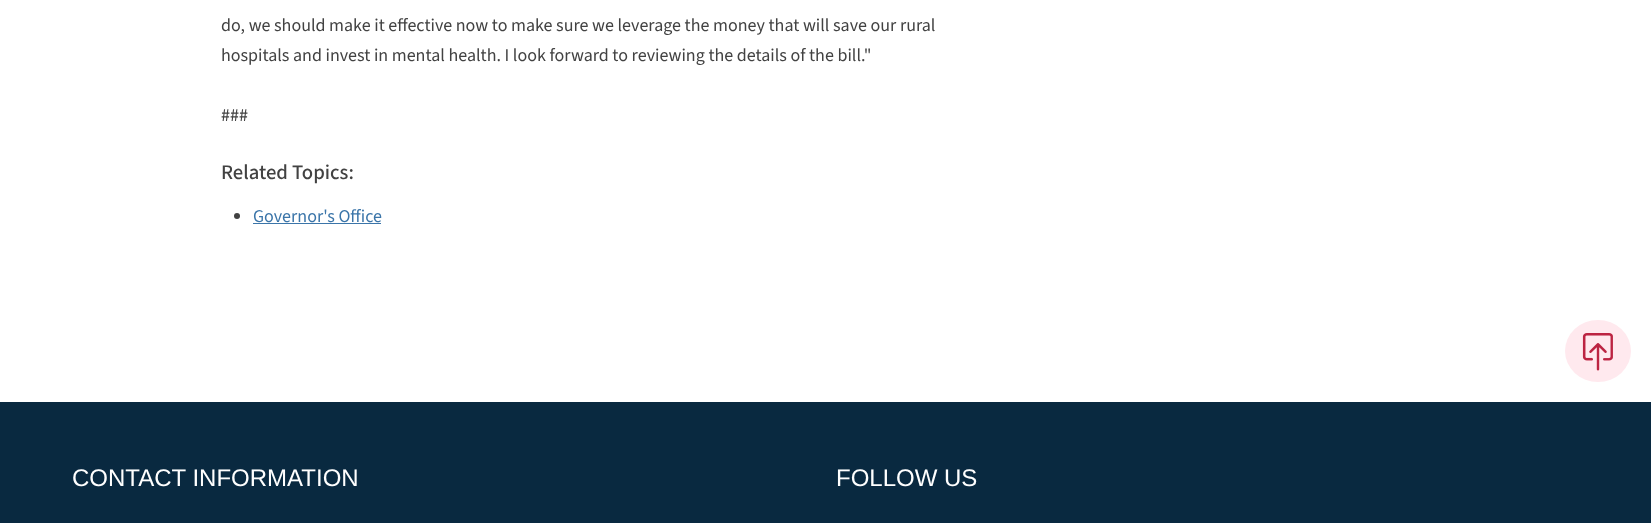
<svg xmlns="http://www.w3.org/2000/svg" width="1651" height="523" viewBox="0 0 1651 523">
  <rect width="100%" height="100%" fill="#fff"/>
  <circle cx="237" cy="216" r="3" fill="#424242"/>
  <path d="M253 223h128v1H253z" fill="#3b75a9"/>
  <ellipse cx="1598" cy="351" rx="33" ry="31" fill="#ffe9ee"/>
  <image x="1582" y="333" width="31" height="38" href="img/1.png"/>
  <path d="M0 402h1651v121H0z" fill="#092940"/>
  <g font-family="'Source Sans 3'" font-size="18" fill="#424242">
    <text x="221" y="31">do, we should make it effective now to make sure we leverage the money that will save our rural</text>
    <text x="221" y="61">hospitals and invest in mental health. I look forward to reviewing the details of the bill."</text>
    <text x="221" y="121">###</text>
  </g>
  <text x="221" y="179" font-family="'Source Sans 3'" font-size="20.75" font-weight="500" fill="#424242">Related Topics:</text>
  <text x="253" y="222" font-family="'Source Sans 3'" font-size="18" fill="#3b75a9">Governor's Office</text>
  <g font-family="Liberation Sans" font-size="24" fill="#fff">
    <text x="72" y="486">CONTACT INFORMATION</text>
    <text x="836" y="486">FOLLOW US</text>
  </g>
</svg>
